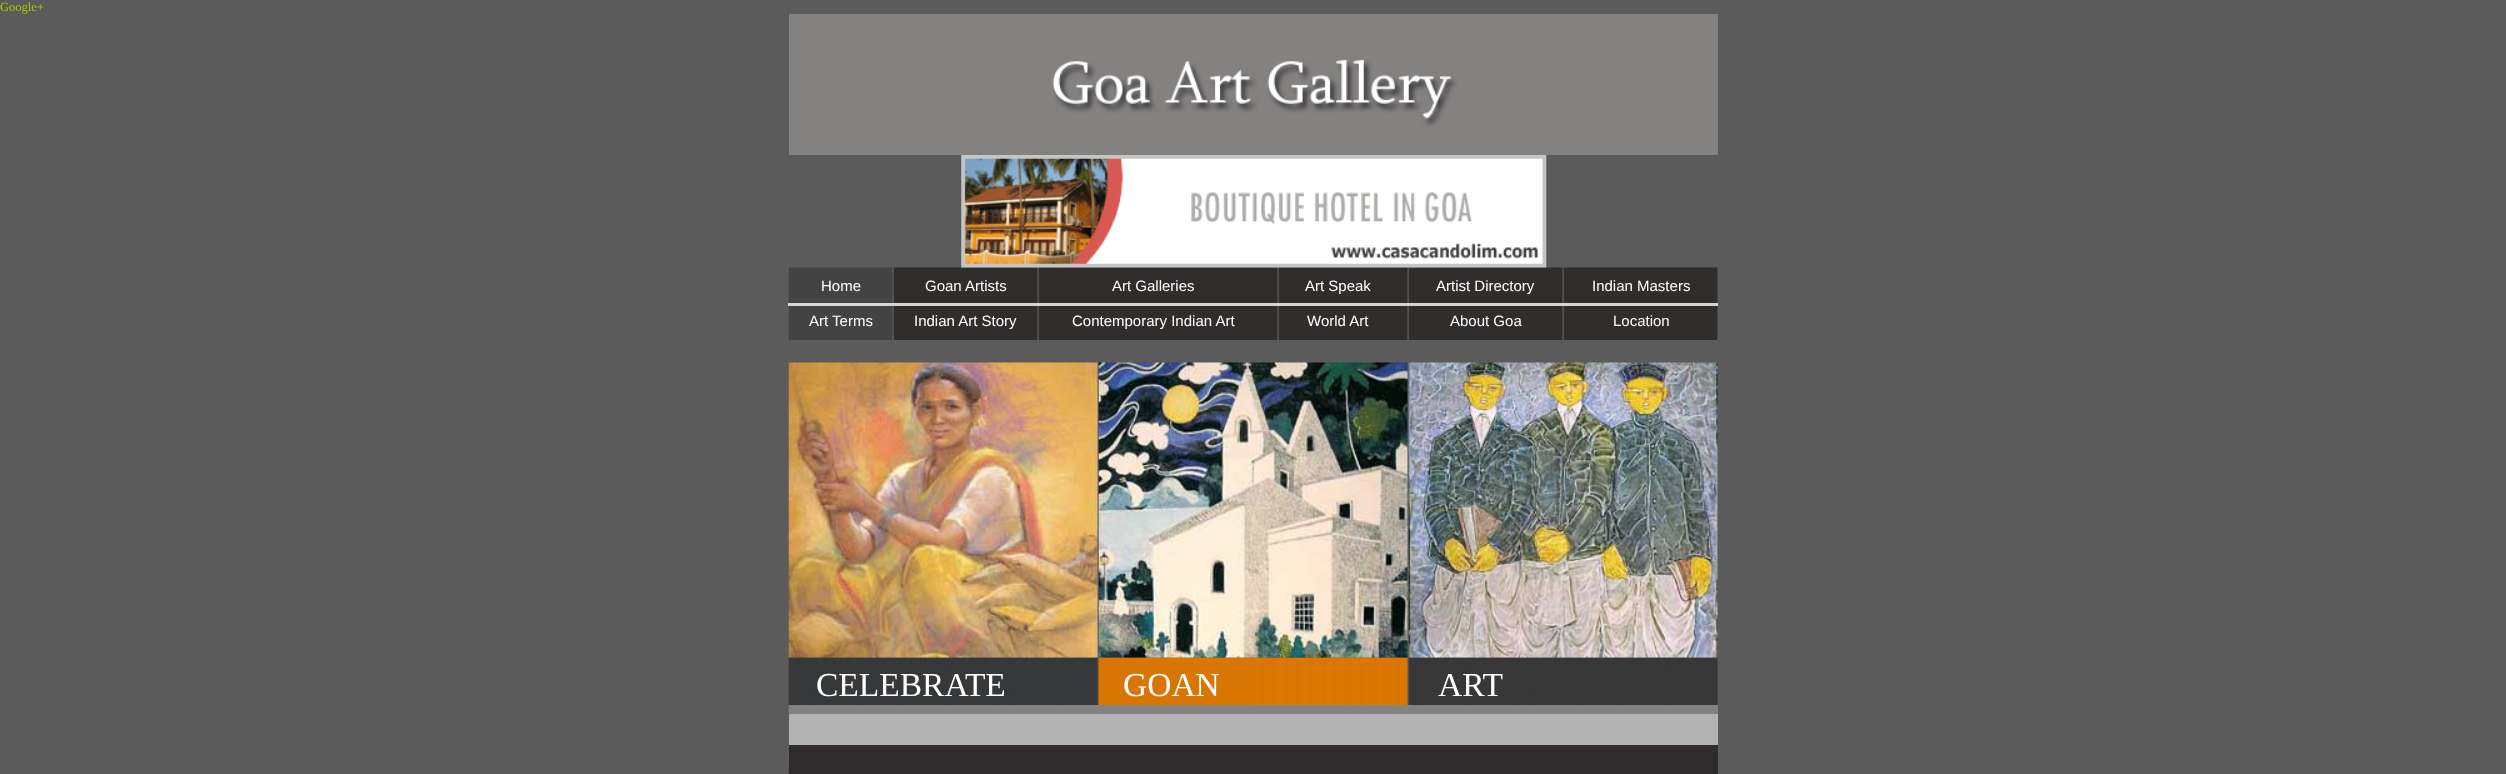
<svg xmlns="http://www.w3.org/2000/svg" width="2506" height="774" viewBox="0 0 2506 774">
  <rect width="100%" height="100%" fill="#5b5b5b"/>
  <path d="M789 14h929v141H789z" fill="#848181"/>
  <image x="1052" y="59" width="405" height="68" href="img/1.png"/>
  <image x="788" y="267" width="930" height="73" href="img/3.png"/>
  <image x="961" y="155" width="586" height="113" href="img/2.png"/>
  <path d="M788 303h930v3H788z" fill="#eae5e5e6"/>
  <image x="788" y="657" width="930" height="48" href="img/5.png"/>
  <image x="788" y="362" width="930" height="296" href="img/4.png"/>
  <path d="M789 705h929v9H789z" fill="#848181"/>
  <image x="788" y="705" width="1" height="9" href="img/6.png"/>
  <path d="M789 745h929v29H789z" fill="#302c2d"/>
  <path d="M789 714h929v31H789z" fill="#b3b3b3"/>
  <image x="788" y="767" width="1" height="7" href="img/7.png"/>
  <text x="0" y="11" font-family="Liberation Serif" font-size="12.5" fill="#acc800">Google+</text>
  <g font-family="Liberation Sans" font-size="15" fill="#fff">
    <text x="821" y="291">Home</text>
    <text x="925" y="291">Goan Artists</text>
    <text x="1112" y="291">Art Galleries</text>
    <text x="1305" y="291">Art Speak</text>
    <text x="1436" y="291">Artist Directory</text>
    <text x="1592" y="291">Indian Masters</text>
    <text x="809" y="326">Art Terms</text>
    <text x="914" y="326">Indian Art Story</text>
    <text x="1072" y="326">Contemporary Indian Art</text>
    <text x="1307" y="326">World Art</text>
    <text x="1450" y="326">About Goa</text>
    <text x="1613" y="326">Location</text>
  </g>
  <g font-family="Liberation Serif" font-size="33.5" fill="#fff">
    <text x="816" y="696">CELEBRATE</text>
    <text x="1123" y="696">GOAN</text>
    <text x="1438" y="696">ART</text>
  </g>
</svg>
